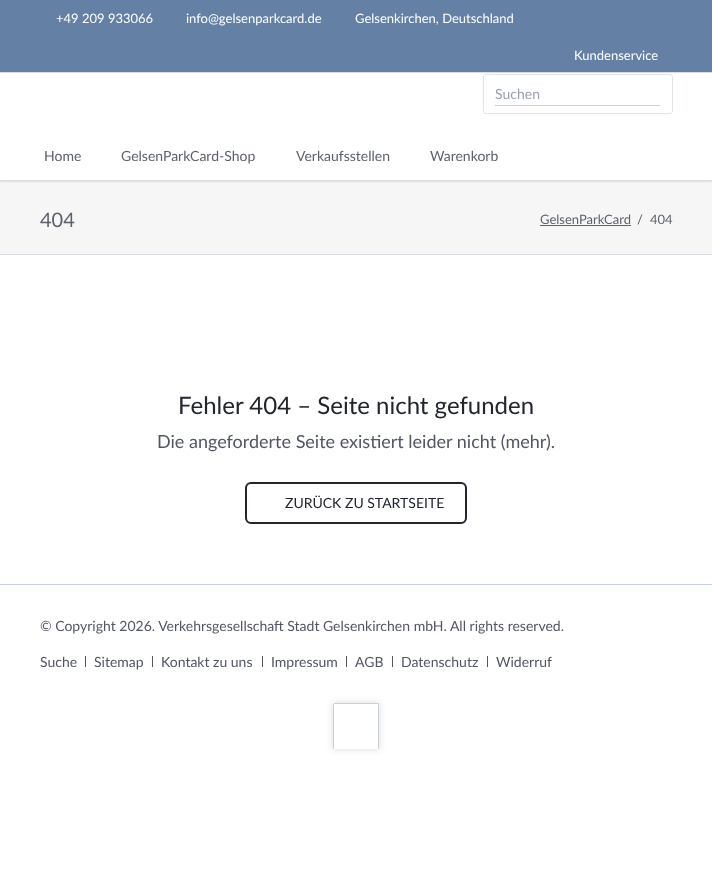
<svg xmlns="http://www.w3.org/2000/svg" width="712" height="881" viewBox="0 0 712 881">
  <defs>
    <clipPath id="clip1"><path d="M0 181h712v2H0z"/></clipPath>
  </defs>
  <rect width="100%" height="100%" fill="#fff"/>
  <path d="M0 0h712v72H0z" fill="#6480a5"/>
  <path d="M0 72h712v1H0z" fill="#d9dce1"/>
  <path d="M0 181h712v73H0z" fill="#f6f6f6"/>
  <g clip-path="url(#clip1)">
    <path d="M0 74h712v108H0z" fill="#0000001a" filter="blur(1px)"/>
  </g>
  <path d="M0 180h712v1H0z" fill="#d9dce1"/>
  <rect x="483.5" y="74.5" width="189" height="39" rx="2.5" fill="none" stroke="#e0e5eb"/>
  <path d="M495 105h165v1H495z" fill="#cad0d8"/>
  <path d="M0 254h712v1H0z" fill="#d9dce1"/>
  <path d="M540 225h91v1H540z" fill="#5c6269"/>
  <rect x="246" y="483" width="220" height="40" rx="5" fill="none" stroke="#22252e" stroke-width="2"/>
  <path d="M0 584h712v1H0z" fill="#cad0d8"/>
  <path d="M85 656h1v11H85z" fill="#525663"/>
  <path d="M152 656h1v11H152z" fill="#525663"/>
  <path d="M262 656h1v11H262z" fill="#525663"/>
  <path d="M346 656h1v11H346z" fill="#525663"/>
  <path d="M392 656h1v11H392z" fill="#525663"/>
  <path d="M487 656h1v11H487z" fill="#525663"/>
  <rect x="333" y="703" width="46" height="46" rx="1" fill="#00000026" filter="blur(3.5px)"/>
  <path d="M334 703H378C378.5 703 379 703.5 379 704V749H333V704C333 703.5 333.5 703 334 703Z" fill="#fff"/>
  <path d="M334 703h45v1H334z" fill="#cad0d8"/>
  <path d="M378 704h1v45H378z" fill="#cad0d8"/>
  <path d="M333 704h1v45H333z" fill="#cad0d8"/>
  <g font-family="Lato" font-size="13" fill="#fff">
    <text x="56" y="23">+49 209 933066</text>
    <text x="186" y="23">info@gelsenparkcard.de</text>
    <text x="355" y="23">Gelsenkirchen, Deutschland</text>
    <text x="574" y="60">Kundenservice</text>
  </g>
  <text x="495" y="99" font-family="Lato" font-size="14" fill="#98a0ab">Suchen</text>
  <g font-family="Lato" font-size="14" fill="#5c6269">
    <text x="44" y="161">Home</text>
    <text x="121" y="161">GelsenParkCard-Shop</text>
    <text x="296" y="161">Verkaufsstellen</text>
    <text x="430" y="161">Warenkorb</text>
  </g>
  <text x="40" y="227" font-family="Lato" font-size="20" fill="#5c6269">404</text>
  <g font-family="Lato" font-size="13" fill="#5c6269">
    <text x="540" y="224">GelsenParkCard</text>
    <text x="637" y="224">/</text>
    <text x="650" y="224">404</text>
  </g>
  <text x="178" y="414" font-family="Lato" font-size="24" fill="#22252e">Fehler 404 – Seite nicht gefunden</text>
  <text x="157" y="448" font-family="Lato" font-size="18" fill="#525663">Die angeforderte Seite existiert leider nicht (mehr).</text>
  <text x="285" y="508" font-family="Lato" font-size="14" fill="#22252e">ZURÜCK ZU STARTSEITE</text>
  <g font-family="Lato" font-size="14" fill="#525663">
    <text x="40" y="631">© Copyright 2026. Verkehrsgesellschaft Stadt Gelsenkirchen mbH. All rights reserved.</text>
    <text x="40" y="667">Suche</text>
    <text x="94" y="667">Sitemap</text>
    <text x="161" y="667">Kontakt zu uns</text>
    <text x="271" y="667">Impressum</text>
    <text x="355" y="667">AGB</text>
    <text x="401" y="667">Datenschutz</text>
    <text x="496" y="667">Widerruf</text>
  </g>
</svg>
